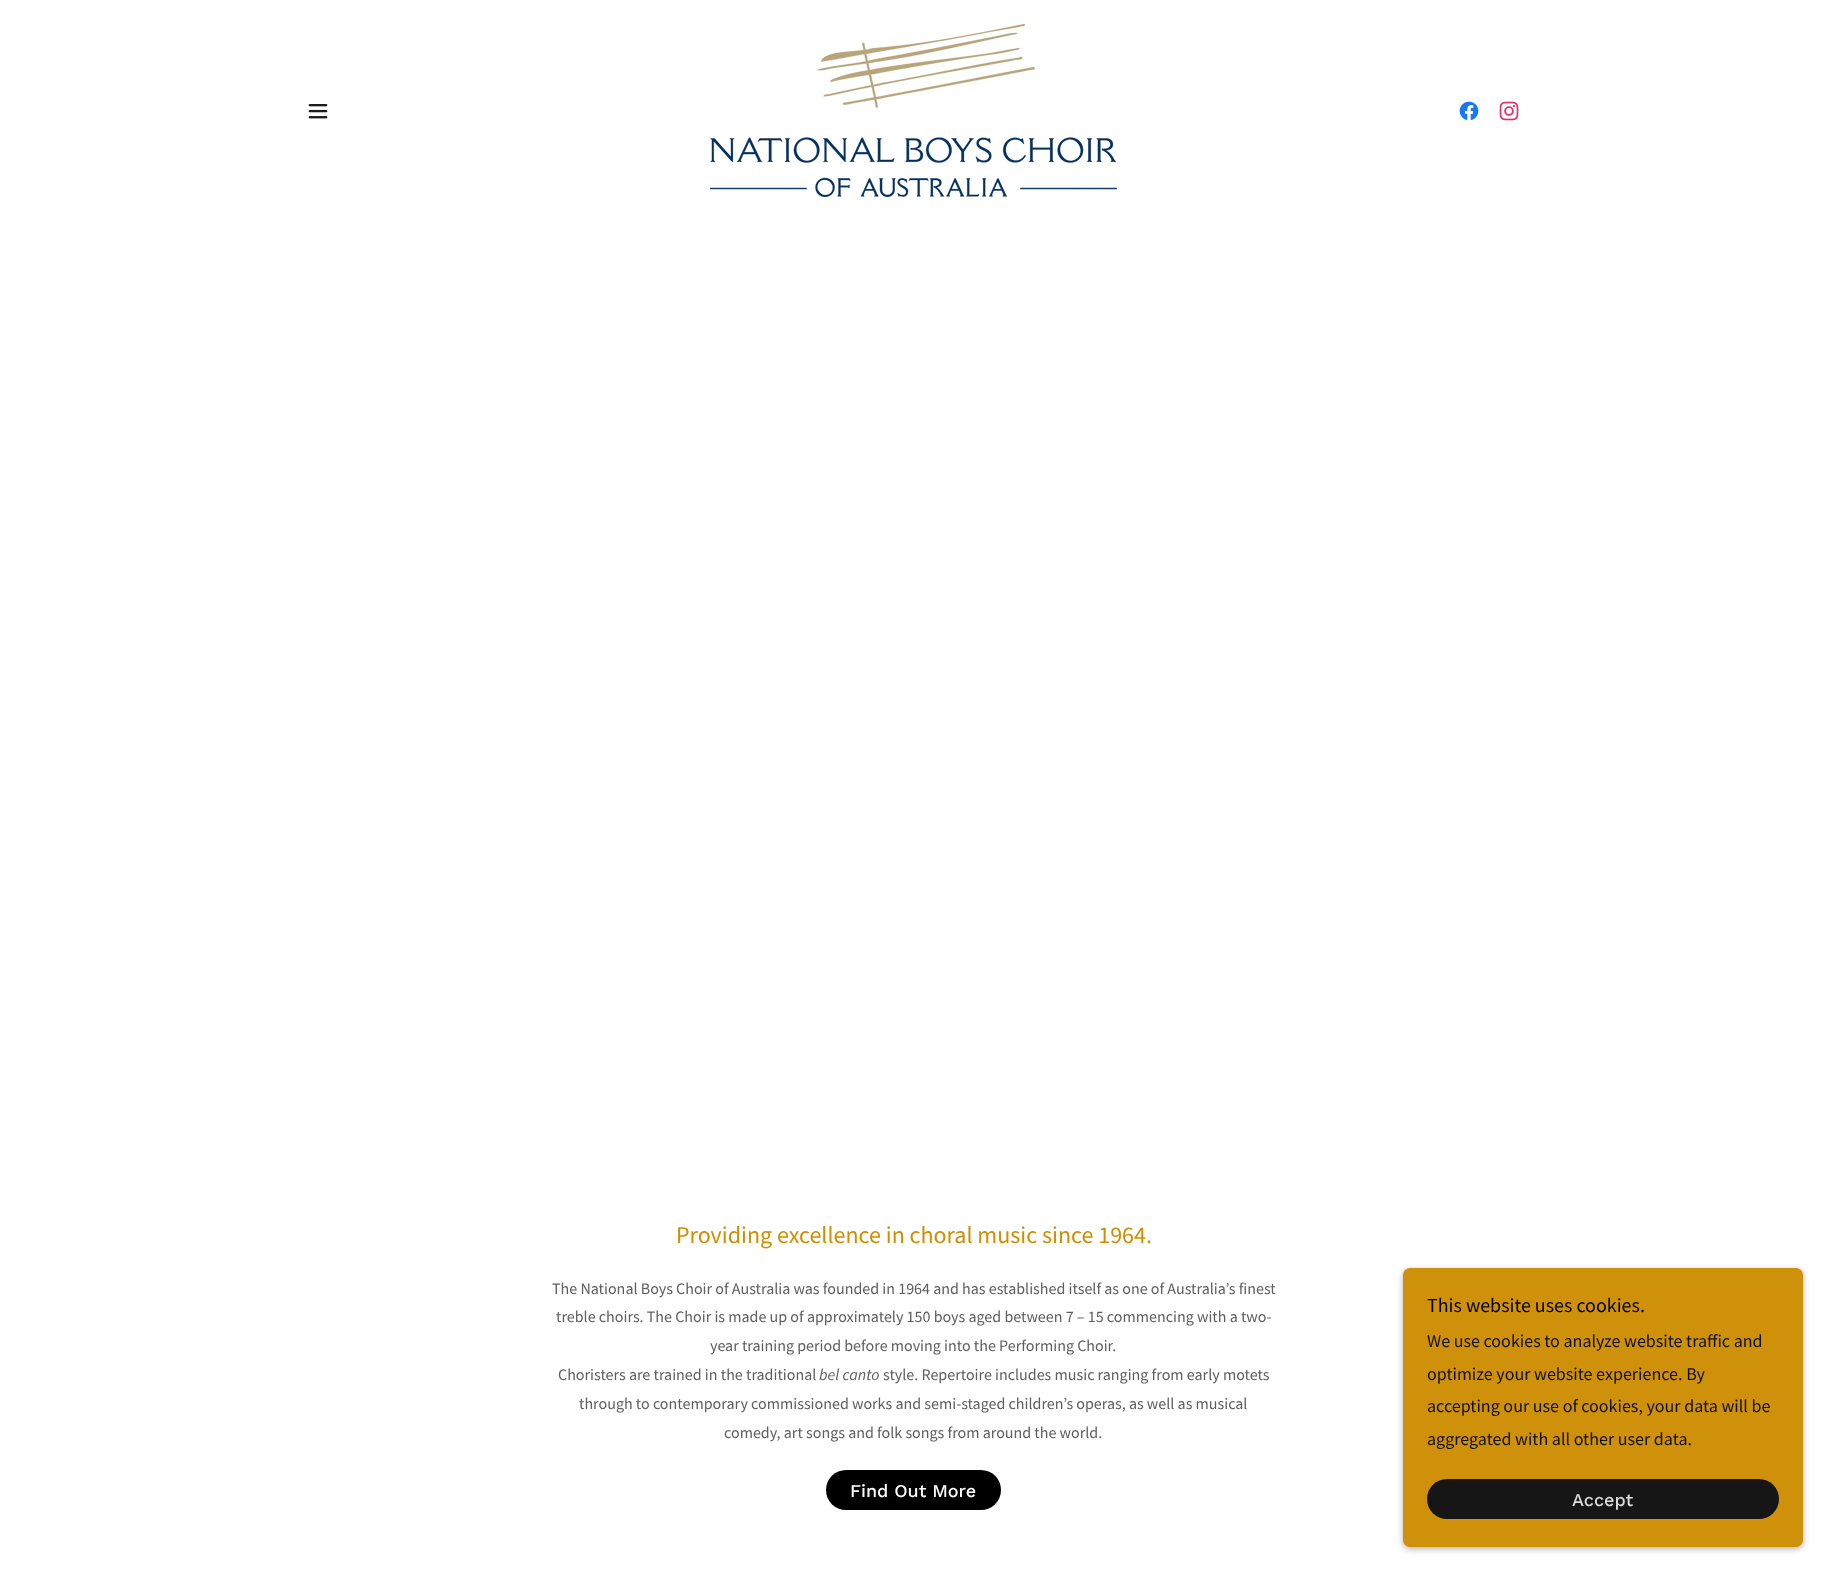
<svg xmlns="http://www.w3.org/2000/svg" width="1827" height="1571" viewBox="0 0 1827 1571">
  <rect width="100%" height="100%" fill="#fff"/>
  <image x="308" y="104" width="20" height="15" href="img/1.png"/>
  <image x="710" y="24" width="407" height="173" href="img/2.png"/>
  <image x="1459" y="101" width="20" height="20" href="img/3.png"/>
  <image x="1499" y="101" width="20" height="20" href="img/4.png"/>
  <rect x="826" y="1470" width="175" height="40" rx="20" fill="#000"/>
  <rect x="1403" y="1270" width="400" height="279" rx="7" fill="#0000004d" filter="blur(3px)"/>
  <rect x="1403" y="1268" width="400" height="279" rx="7" fill="#cf910a"/>
  <rect x="1427" y="1479" width="352" height="40" rx="20" fill="#161616"/>
  <text x="676" y="1243" font-family="Source Sans Pro" font-size="24" fill="#cf8e00">Providing excellence in choral music since 1964.</text>
  <g font-family="Source Sans Pro" font-size="16" fill="#5e5e5e">
    <text x="552" y="1294">The National Boys Choir of Australia was founded in 1964 and has established itself as one of Australia’s finest</text>
    <text x="556" y="1322">treble choirs. The Choir is made up of approximately 150 boys aged between 7 – 15 commencing with a two-</text>
    <text x="710" y="1351">year training period before moving into the Performing Choir.</text>
    <text x="558" y="1380">Choristers are trained in the traditional</text>
  </g>
  <text x="819" y="1380" font-family="Source Sans Pro" font-size="16" font-style="italic" fill="#5e5e5e">bel canto</text>
  <g font-family="Source Sans Pro" font-size="16" fill="#5e5e5e">
    <text x="883" y="1380">style. Repertoire includes music ranging from early motets</text>
    <text x="579" y="1409">through to contemporary commissioned works and semi-staged children’s operas, as well as musical</text>
    <text x="724" y="1438">comedy, art songs and folk songs from around the world.</text>
  </g>
  <text x="850" y="1497" font-family="Work Sans" font-size="18" font-weight="500" fill="#fff">Find Out More</text>
  <text x="1427" y="1312" font-family="Source Sans Pro" font-size="20" fill="#000">This website uses cookies.</text>
  <g font-family="Source Sans Pro" font-size="18" fill="#11100f">
    <text x="1427" y="1347">We use cookies to analyze website traffic and</text>
    <text x="1427" y="1380">optimize your website experience. By</text>
    <text x="1427" y="1412">accepting our use of cookies, your data will be</text>
    <text x="1427" y="1445">aggregated with all other user data.</text>
  </g>
  <text x="1572" y="1506" font-family="Work Sans" font-size="18" font-weight="500" fill="#dbdbdb">Accept</text>
</svg>
